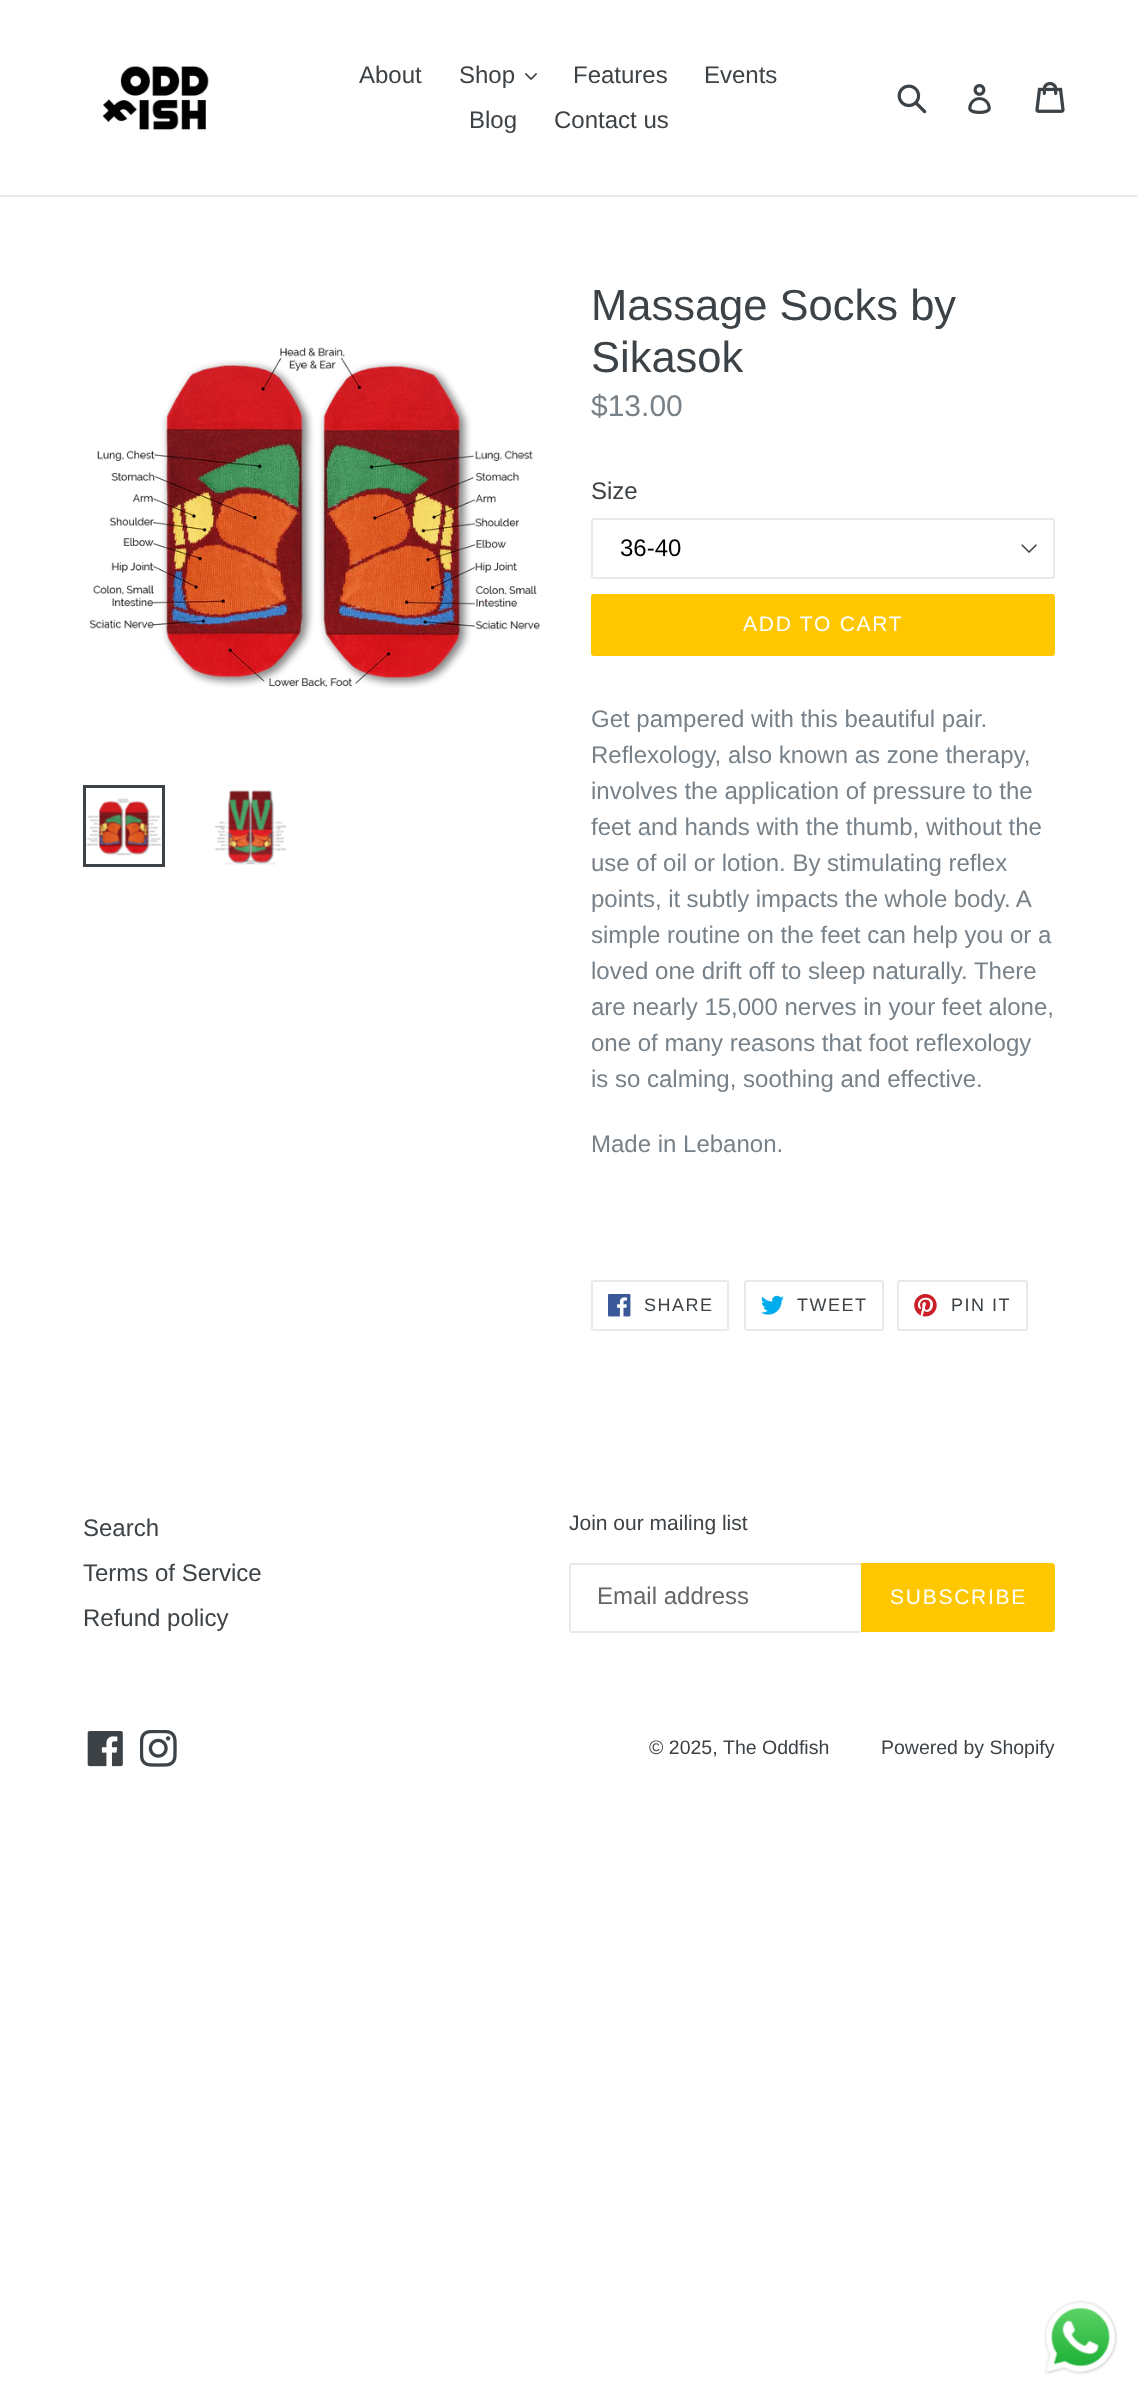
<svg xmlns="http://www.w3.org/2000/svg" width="1137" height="2394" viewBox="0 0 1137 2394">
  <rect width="100%" height="100%" fill="#fff"/>
  <path d="M0 195h1137v2H0z" fill="#e8e9eb"/>
  <image x="102" y="66" width="107" height="66" href="img/1.png"/>
  <image x="525" y="73" width="12" height="7" href="img/2.png"/>
  <image x="897" y="84" width="30" height="30" href="img/3.png"/>
  <image x="968" y="84" width="23" height="30" href="img/4.png"/>
  <image x="1035" y="81" width="30" height="32" href="img/5.png"/>
  <image x="89" y="347" width="451" height="341" href="img/6.png"/>
  <path d="M84.5 786.5h79v79H84.5z" fill="none" stroke="#3d4246" stroke-width="3"/>
  <image x="86" y="798" width="76" height="58" href="img/7.png"/>
  <image x="214" y="790" width="73" height="75" href="img/8.png"/>
  <image x="1021" y="544" width="16" height="9" href="img/9.png"/>
  <rect x="592" y="519" width="462" height="59" rx="2" fill="none" stroke="#e8e9eb" stroke-width="2"/>
  <rect x="591" y="594" width="464" height="62" rx="3" fill="#ffc700"/>
  <rect x="592" y="1281" width="136" height="49" rx="2" fill="none" stroke="#e8e9eb" stroke-width="2"/>
  <image x="608" y="1294" width="23" height="23" href="img/10.png"/>
  <rect x="745" y="1281" width="138" height="49" rx="2" fill="none" stroke="#e8e9eb" stroke-width="2"/>
  <image x="761" y="1295" width="23" height="20" href="img/11.png"/>
  <rect x="898" y="1281" width="129" height="49" rx="2" fill="none" stroke="#e8e9eb" stroke-width="2"/>
  <image x="914" y="1294" width="23" height="23" href="img/12.png"/>
  <path d="M570 1563h291v2H570z" fill="#e8e9eb"/>
  <path d="M570 1631h291v2H570z" fill="#e8e9eb"/>
  <path d="M569 1565h2v66H569z" fill="#e8e9eb"/>
  <path d="M861 1563H1052C1053.5 1563 1055 1564.5 1055 1566V1629C1055 1630.5 1053.5 1632 1052 1632H861Z" fill="#ffc700"/>
  <image x="87" y="1731" width="36" height="36" href="img/13.png"/>
  <image x="140" y="1730" width="37" height="37" href="img/14.png"/>
  <image x="1044" y="2300" width="74" height="75" href="img/15.png"/>
  <g font-family="Liberation Sans" font-size="24" fill="#3d4246">
    <text x="359" y="83">About</text>
    <text x="459" y="83">Shop</text>
    <text x="573" y="83">Features</text>
    <text x="704" y="83">Events</text>
    <text x="469" y="128">Blog</text>
    <text x="554" y="128">Contact us</text>
  </g>
  <g font-family="Liberation Sans" font-size="43.5" fill="#3d4246">
    <text x="591" y="320">Massage Socks by</text>
    <text x="591" y="372">Sikasok</text>
  </g>
  <text x="591" y="416" font-family="Liberation Sans" font-size="30" fill="#788188">$13.00</text>
  <text x="591" y="499" font-family="Liberation Sans" font-size="24" fill="#3d4246">Size</text>
  <text x="620" y="556" font-family="Liberation Sans" font-size="24" fill="#000">36-40</text>
  <text x="743" y="631" font-family="Liberation Sans" font-size="21" letter-spacing="1.75" fill="#fff">ADD TO CART</text>
  <g font-family="Liberation Sans" font-size="24" fill="#788188">
    <text x="591" y="727">Get pampered with this beautiful pair.</text>
    <text x="591" y="763">Reflexology, also known as zone therapy,</text>
    <text x="591" y="799">involves the application of pressure to the</text>
    <text x="591" y="835">feet and hands with the thumb, without the</text>
    <text x="591" y="871">use of oil or lotion. By stimulating reflex</text>
    <text x="591" y="907" word-spacing="-0.25">points, it subtly impacts the whole body. A</text>
    <text x="591" y="943">simple routine on the feet can help you or a</text>
    <text x="591" y="979">loved one drift off to sleep naturally. There</text>
    <text x="591" y="1015">are nearly 15,000 nerves in your feet alone,</text>
    <text x="591" y="1051">one of many reasons that foot reflexology</text>
    <text x="591" y="1087">is so calming, soothing and effective.</text>
    <text x="591" y="1152">Made in Lebanon.</text>
  </g>
  <g font-family="Liberation Sans" font-size="18" letter-spacing="1.5" fill="#3d4246">
    <text x="644" y="1311">SHARE</text>
    <text x="797" y="1311">TWEET</text>
    <text x="951" y="1311">PIN IT</text>
  </g>
  <g font-family="Liberation Sans" font-size="24" fill="#3d4246">
    <text x="83" y="1536">Search</text>
    <text x="83" y="1581">Terms of Service</text>
    <text x="83" y="1626">Refund policy</text>
  </g>
  <text x="569" y="1530" font-family="Liberation Sans" font-size="21" fill="#3d4246">Join our mailing list</text>
  <text x="597" y="1604" font-family="Liberation Sans" font-size="24" fill="#666">Email address</text>
  <text x="890" y="1604" font-family="Liberation Sans" font-size="21" letter-spacing="1.75" fill="#fff">SUBSCRIBE</text>
  <g font-family="Liberation Sans" font-size="19.5" fill="#3d4246">
    <text x="649" y="1754">© 2025,</text>
    <text x="723" y="1754">The Oddfish</text>
    <text x="881" y="1754">Powered by Shopify</text>
  </g>
</svg>
